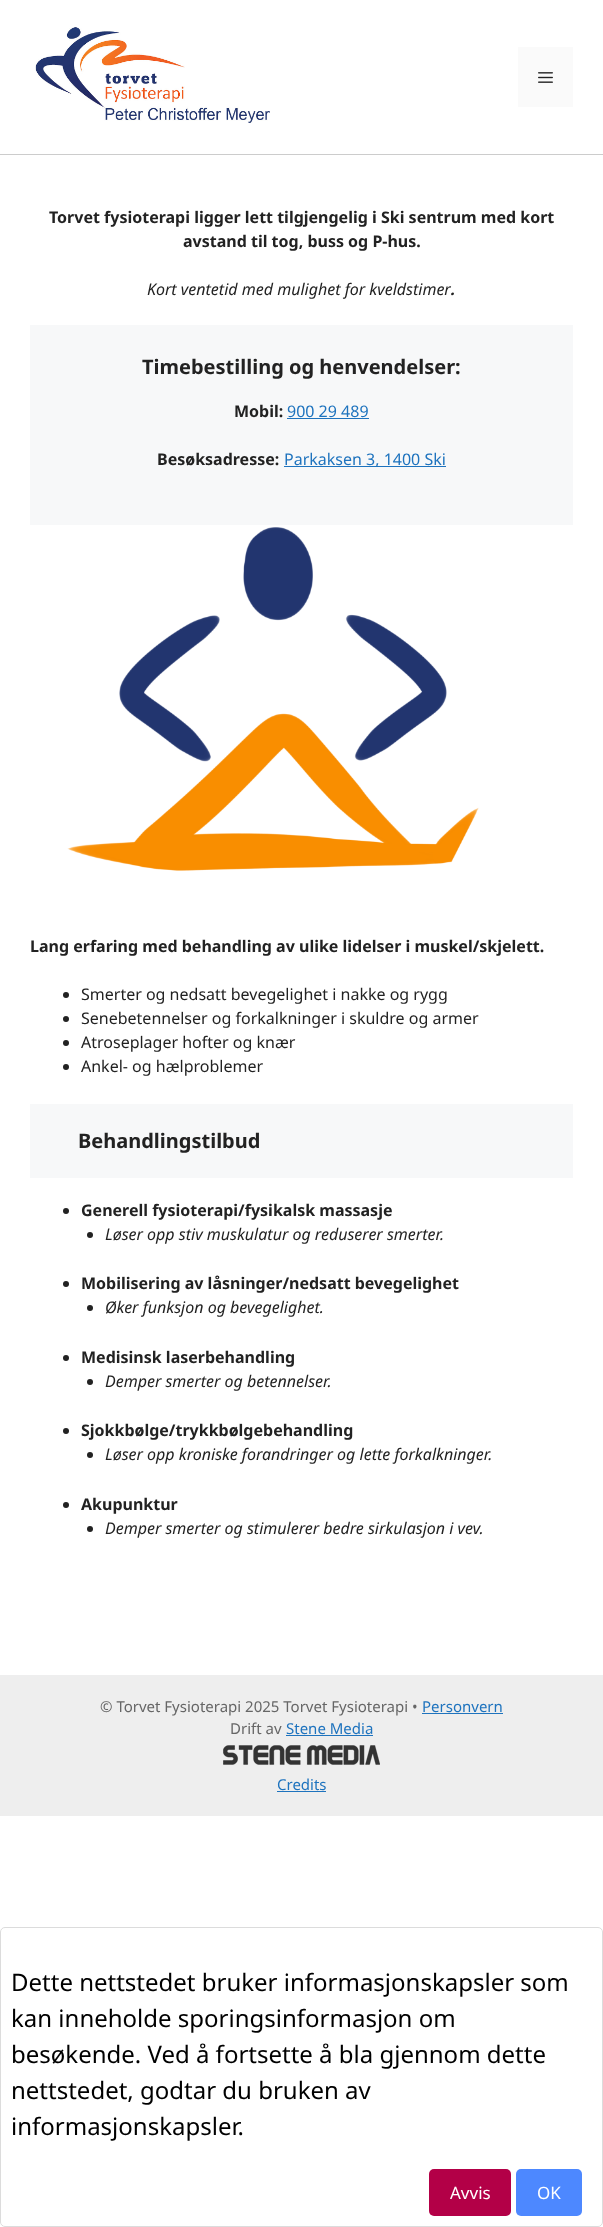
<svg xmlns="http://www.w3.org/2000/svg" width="603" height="2227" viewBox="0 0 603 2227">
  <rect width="100%" height="100%" fill="#fff"/>
  <image x="35" y="27" width="235" height="96" href="img/1.png"/>
  <path d="M518 47h55v60H518z" fill="#fafafa"/>
  <image x="538" y="72" width="15" height="11" href="img/2.png"/>
  <path d="M0 154h603v1H0z" fill="#ccc"/>
  <path d="M30 325h543v200H30z" fill="#f7f8f9"/>
  <path d="M287 418h82v1H287z" fill="#1e73be"/>
  <path d="M284 466h162v1H284z" fill="#1e73be"/>
  <image x="67" y="527" width="412" height="344" href="img/3.png"/>
  <circle cx="66" cy="995" r="3" fill="#222"/>
  <circle cx="66" cy="1019" r="3" fill="#222"/>
  <circle cx="66" cy="1043" r="3" fill="#222"/>
  <circle cx="66" cy="1067" r="3" fill="#222"/>
  <path d="M30 1104h543v74H30z" fill="#f7f8f9"/>
  <circle cx="66" cy="1211" r="3" fill="#222"/>
  <circle cx="90" cy="1235" r="3" fill="#222"/>
  <circle cx="66" cy="1284" r="3" fill="#222"/>
  <circle cx="90" cy="1308" r="3" fill="#222"/>
  <circle cx="66" cy="1358" r="3" fill="#222"/>
  <circle cx="90" cy="1382" r="3" fill="#222"/>
  <circle cx="66" cy="1431" r="3" fill="#222"/>
  <circle cx="90" cy="1455" r="3" fill="#222"/>
  <circle cx="66" cy="1505" r="3" fill="#222"/>
  <circle cx="90" cy="1529" r="3" fill="#222"/>
  <path d="M0 1675h603v141H0z" fill="#eee"/>
  <path d="M422 1713h81v1H422z" fill="#1e73be"/>
  <path d="M286 1735h87v1H286z" fill="#1e73be"/>
  <image x="223" y="1745" width="157" height="20" href="img/4.png"/>
  <path d="M277 1791h49v1H277z" fill="#1e73be"/>
  <rect x="0.5" y="1927.5" width="602" height="299" rx="4.5" fill="none" stroke="#dcdcdc"/>
  <rect x="429" y="2169" width="82" height="47" rx="5" fill="#b30047"/>
  <rect x="516" y="2169" width="66" height="47" rx="5" fill="#4d88ff"/>
  <g font-family="Noto Sans" font-size="16" font-weight="bold" fill="#222">
    <text x="49" y="223">Torvet fysioterapi ligger lett tilgjengelig i Ski sentrum med kort</text>
    <text x="183" y="247">avstand til tog, buss og P-hus.</text>
  </g>
  <text x="147" y="295" font-family="Noto Sans" font-size="16" font-style="italic" fill="#222">Kort ventetid med mulighet for kveldstimer</text>
  <text x="451" y="295" font-family="Noto Sans" font-size="16" font-weight="bold" font-style="italic" fill="#222">.</text>
  <text x="142" y="374" font-family="Noto Sans" font-size="20" font-weight="bold" fill="#222">Timebestilling og henvendelser:</text>
  <text x="234" y="417" font-family="Noto Sans" font-size="16" font-weight="bold" fill="#222">Mobil:</text>
  <text x="287" y="417" font-family="Noto Sans" font-size="16" fill="#1e73be">900 29 489</text>
  <text x="157" y="465" font-family="Noto Sans" font-size="16" font-weight="bold" fill="#222">Besøksadresse:</text>
  <text x="284" y="465" font-family="Noto Sans" font-size="16" fill="#1e73be">Parkaksen 3, 1400 Ski</text>
  <text x="30" y="952" font-family="Noto Sans" font-size="16" font-weight="bold" fill="#222">Lang erfaring med behandling av ulike lidelser i muskel/skjelett.</text>
  <g font-family="Noto Sans" font-size="16" fill="#222">
    <text x="81" y="1000">Smerter og nedsatt bevegelighet i nakke og rygg</text>
    <text x="81" y="1024">Senebetennelser og forkalkninger i skuldre og armer</text>
    <text x="81" y="1048">Atroseplager hofter og knær</text>
    <text x="81" y="1072">Ankel- og hælproblemer</text>
  </g>
  <text x="78" y="1148" font-family="Noto Sans" font-size="20" font-weight="bold" fill="#222">Behandlingstilbud</text>
  <text x="81" y="1216" font-family="Noto Sans" font-size="16" font-weight="bold" fill="#222">Generell fysioterapi/fysikalsk massasje</text>
  <text x="105" y="1240" font-family="Noto Sans" font-size="16" font-style="italic" fill="#222">Løser opp stiv muskulatur og reduserer smerter.</text>
  <text x="81" y="1289" font-family="Noto Sans" font-size="16" font-weight="bold" fill="#222">Mobilisering av låsninger/nedsatt bevegelighet</text>
  <text x="105" y="1313" font-family="Noto Sans" font-size="16" font-style="italic" fill="#222">Øker funksjon og bevegelighet.</text>
  <text x="81" y="1363" font-family="Noto Sans" font-size="16" font-weight="bold" fill="#222">Medisinsk laserbehandling</text>
  <text x="105" y="1387" font-family="Noto Sans" font-size="16" font-style="italic" fill="#222">Demper smerter og betennelser.</text>
  <text x="81" y="1436" font-family="Noto Sans" font-size="16" font-weight="bold" fill="#222">Sjokkbølge/trykkbølgebehandling</text>
  <text x="105" y="1460" font-family="Noto Sans" font-size="16" font-style="italic" fill="#222">Løser opp kroniske forandringer og lette forkalkninger.</text>
  <text x="81" y="1510" font-family="Noto Sans" font-size="16" font-weight="bold" fill="#222">Akupunktur</text>
  <text x="105" y="1534" font-family="Noto Sans" font-size="16" font-style="italic" fill="#222">Demper smerter og stimulerer bedre sirkulasjon i vev.</text>
  <text x="100" y="1712" font-family="Noto Sans" font-size="15" fill="#666">© Torvet Fysioterapi 2025 Torvet Fysioterapi •</text>
  <text x="422" y="1712" font-family="Noto Sans" font-size="15" fill="#1e73be">Personvern</text>
  <text x="230" y="1734" font-family="Noto Sans" font-size="15" fill="#666">Drift av</text>
  <g font-family="Noto Sans" font-size="15" fill="#1e73be">
    <text x="286" y="1734">Stene Media</text>
    <text x="277" y="1790">Credits</text>
  </g>
  <g font-family="Noto Sans" font-size="24" fill="#000">
    <text x="11" y="1991">Dette nettstedet bruker informasjonskapsler som</text>
    <text x="11" y="2027">kan inneholde sporingsinformasjon om</text>
    <text x="11" y="2063">besøkende. Ved å fortsette å bla gjennom dette</text>
    <text x="11" y="2099">nettstedet, godtar du bruken av</text>
    <text x="11" y="2135">informasjonskapsler.</text>
  </g>
  <g font-family="Noto Sans" font-size="17" fill="#fff">
    <text x="450" y="2199">Avvis</text>
    <text x="537" y="2199">OK</text>
  </g>
</svg>
